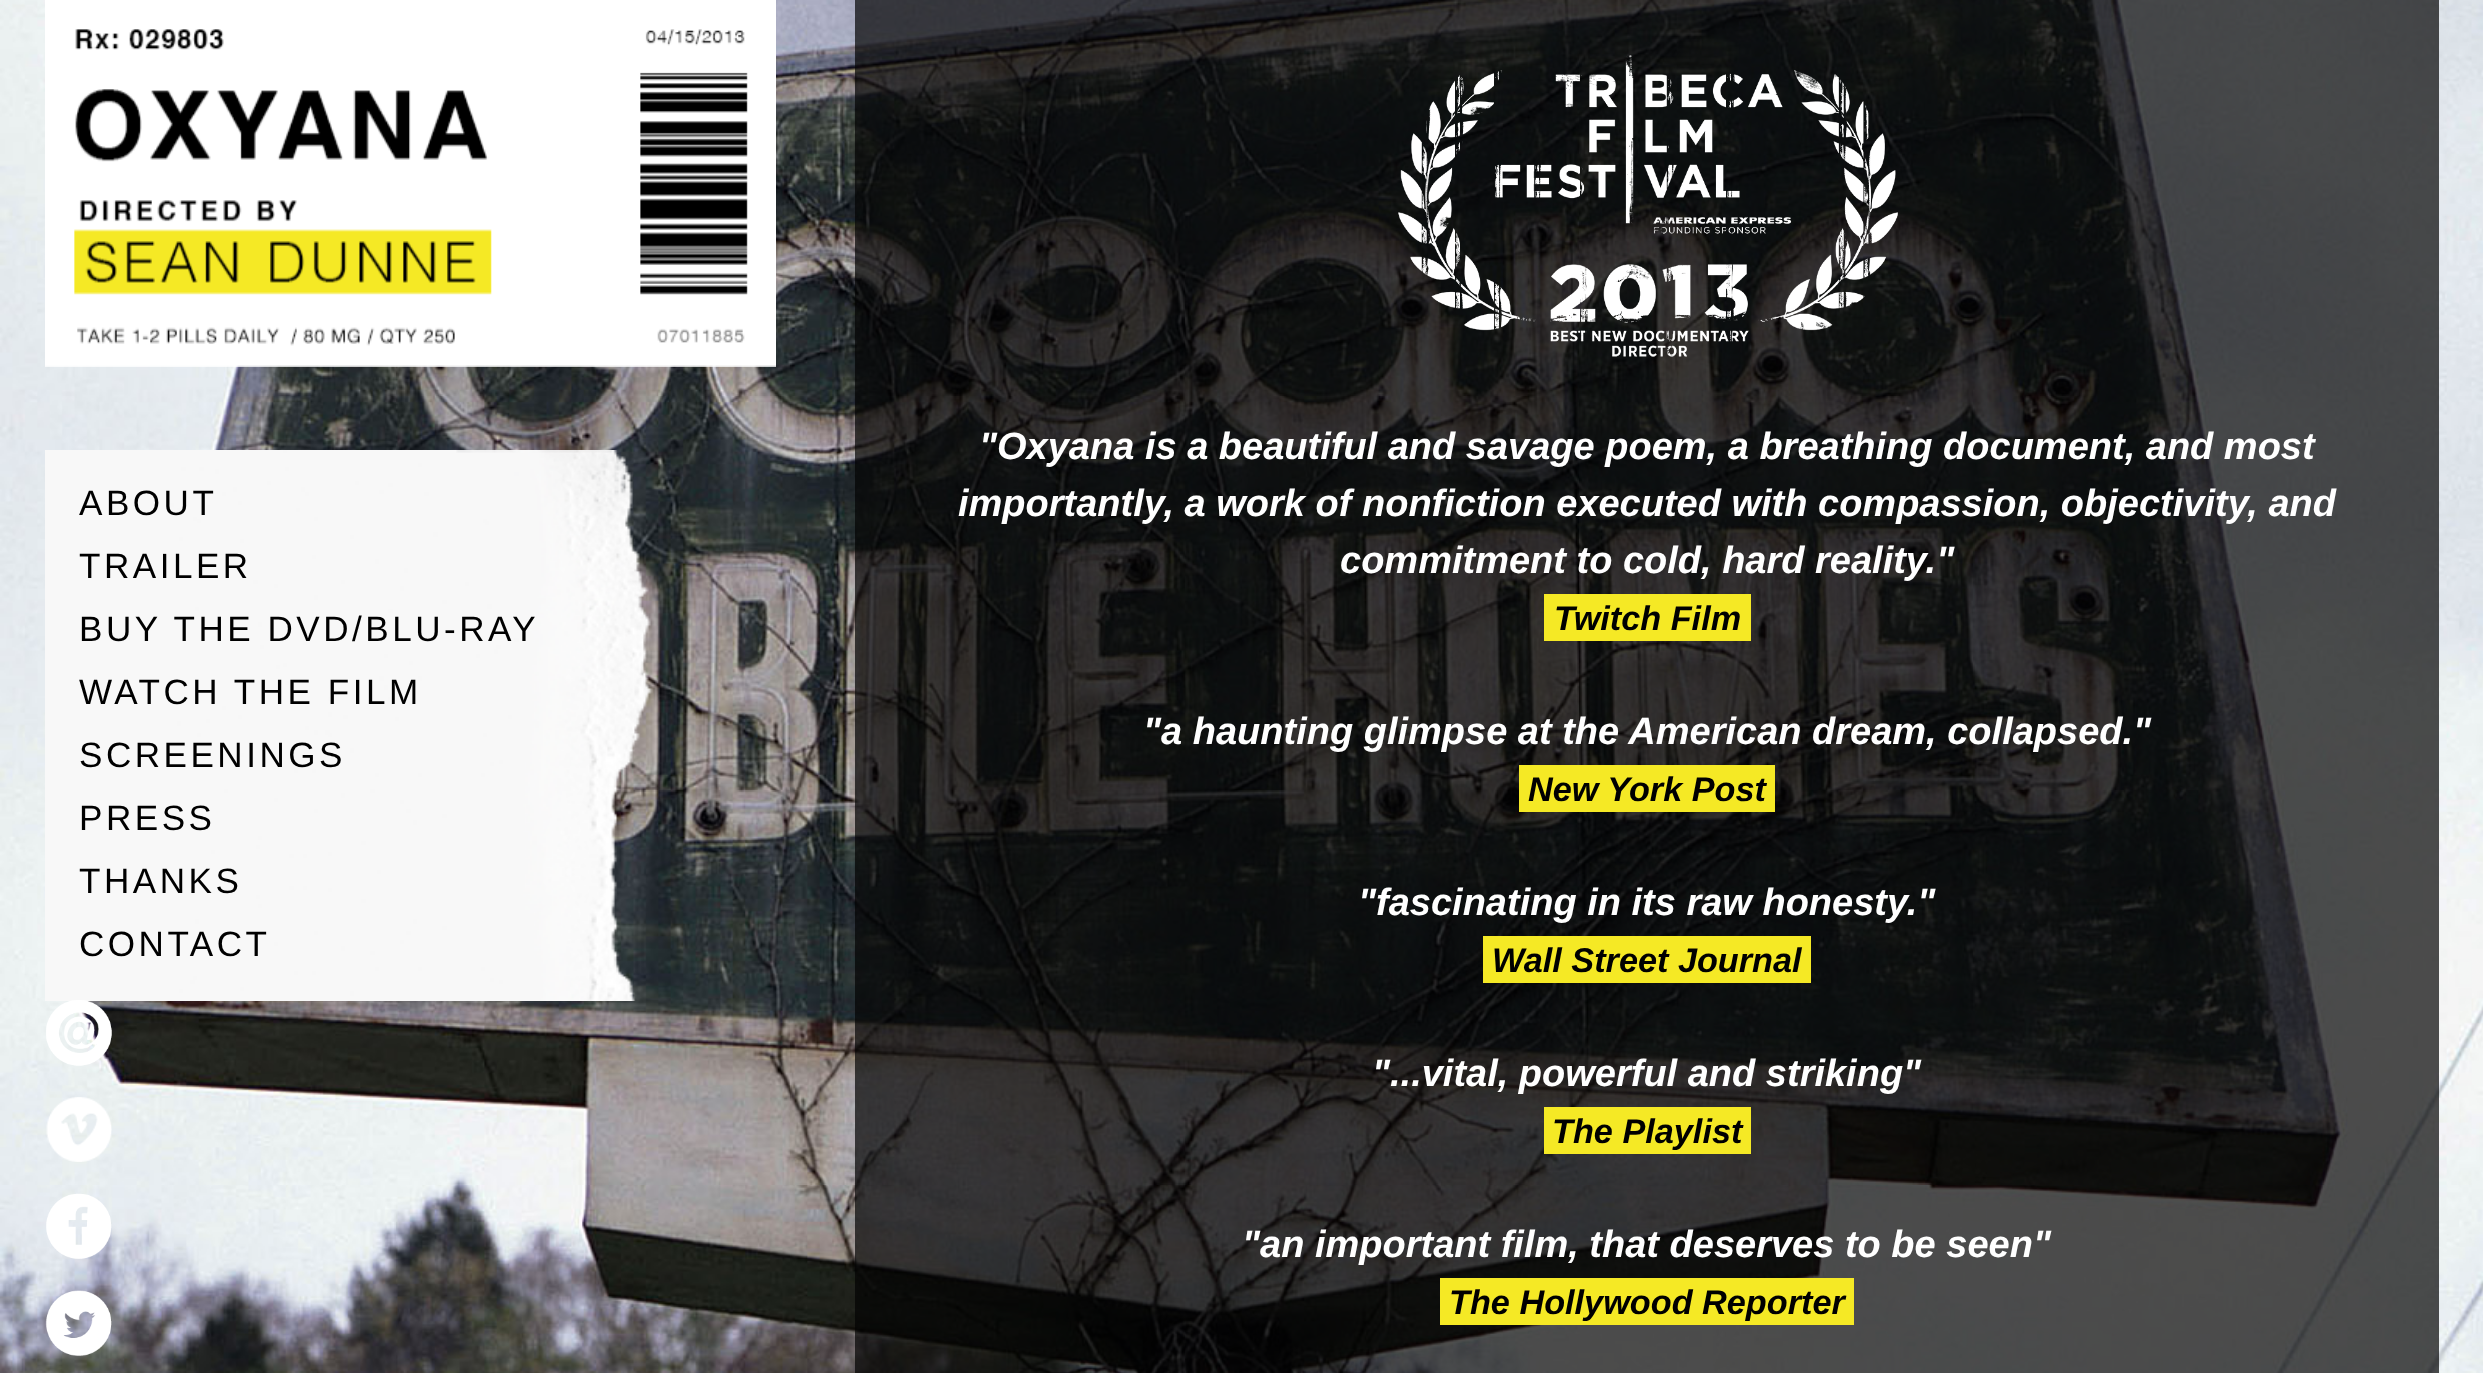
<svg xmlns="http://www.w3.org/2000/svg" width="2483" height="1373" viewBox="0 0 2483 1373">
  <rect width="100%" height="100%" fill="#fff"/>
  <image x="0" y="0" width="2483" height="1373" href="img/1.png"/>
  <image x="45" y="0" width="731" height="367" href="img/2.png"/>
  <image x="45" y="450" width="608" height="551" href="img/3.png"/>
  <path d="M855 0h1584v1373H855z" fill="#030303b3"/>
  <image x="1398" y="55" width="500" height="302" href="img/4.png"/>
  <path d="M1544 594h207v47H1544z" fill="#f5e925"/>
  <path d="M1519 765h256v47H1519z" fill="#f5e925"/>
  <path d="M1483 936h328v47H1483z" fill="#f5e925"/>
  <image x="46" y="1000" width="66" height="66" href="img/5.png"/>
  <image x="46" y="1097" width="66" height="65" href="img/6.png"/>
  <image x="46" y="1193" width="66" height="66" href="img/7.png"/>
  <image x="45" y="1290" width="67" height="66" href="img/8.png"/>
  <path d="M1544 1107h207v47H1544z" fill="#f5e925"/>
  <path d="M1440 1278h414v47H1440z" fill="#f5e925"/>
  <g font-family="Liberation Sans" font-size="35.1" letter-spacing="3.5" fill="#000">
    <text x="79" y="515">ABOUT</text>
    <text x="79" y="578">TRAILER</text>
    <text x="79" y="641">BUY THE DVD/BLU-RAY</text>
    <text x="79" y="704">WATCH THE FILM</text>
    <text x="79" y="767">SCREENINGS</text>
    <text x="79" y="830">PRESS</text>
    <text x="79" y="893">THANKS</text>
    <text x="79" y="956">CONTACT</text>
  </g>
  <g font-family="Liberation Sans" font-size="38" font-weight="bold" font-style="italic" fill="#fff">
    <text x="979" y="459">"Oxyana is a beautiful and savage poem, a breathing document, and most</text>
    <text x="958" y="516">importantly, a work of nonfiction executed with compassion, objectivity, and</text>
    <text x="1340" y="573">commitment to cold, hard reality."</text>
  </g>
  <text x="1554" y="630" font-family="Liberation Sans" font-size="34.25" font-weight="bold" font-style="italic" fill="#000">Twitch Film</text>
  <text x="1143" y="744" font-family="Liberation Sans" font-size="38" font-weight="bold" font-style="italic" fill="#fff">"a haunting glimpse at the American dream, collapsed."</text>
  <text x="1528" y="801" font-family="Liberation Sans" font-size="34.25" font-weight="bold" font-style="italic" fill="#000">New York Post</text>
  <text x="1358" y="915" font-family="Liberation Sans" font-size="38" font-weight="bold" font-style="italic" fill="#fff">"fascinating in its raw honesty."</text>
  <text x="1492" y="972" font-family="Liberation Sans" font-size="34.25" font-weight="bold" font-style="italic" fill="#000">Wall Street Journal</text>
  <text x="1372" y="1086" font-family="Liberation Sans" font-size="38" font-weight="bold" font-style="italic" fill="#fff">"...vital, powerful and striking"</text>
  <text x="1552" y="1143" font-family="Liberation Sans" font-size="34.25" font-weight="bold" font-style="italic" fill="#000">The Playlist</text>
  <text x="1242" y="1257" font-family="Liberation Sans" font-size="38" font-weight="bold" font-style="italic" fill="#fff">"an important film, that deserves to be seen"</text>
  <text x="1449" y="1314" font-family="Liberation Sans" font-size="34.25" font-weight="bold" font-style="italic" fill="#000">The Hollywood Reporter</text>
</svg>
